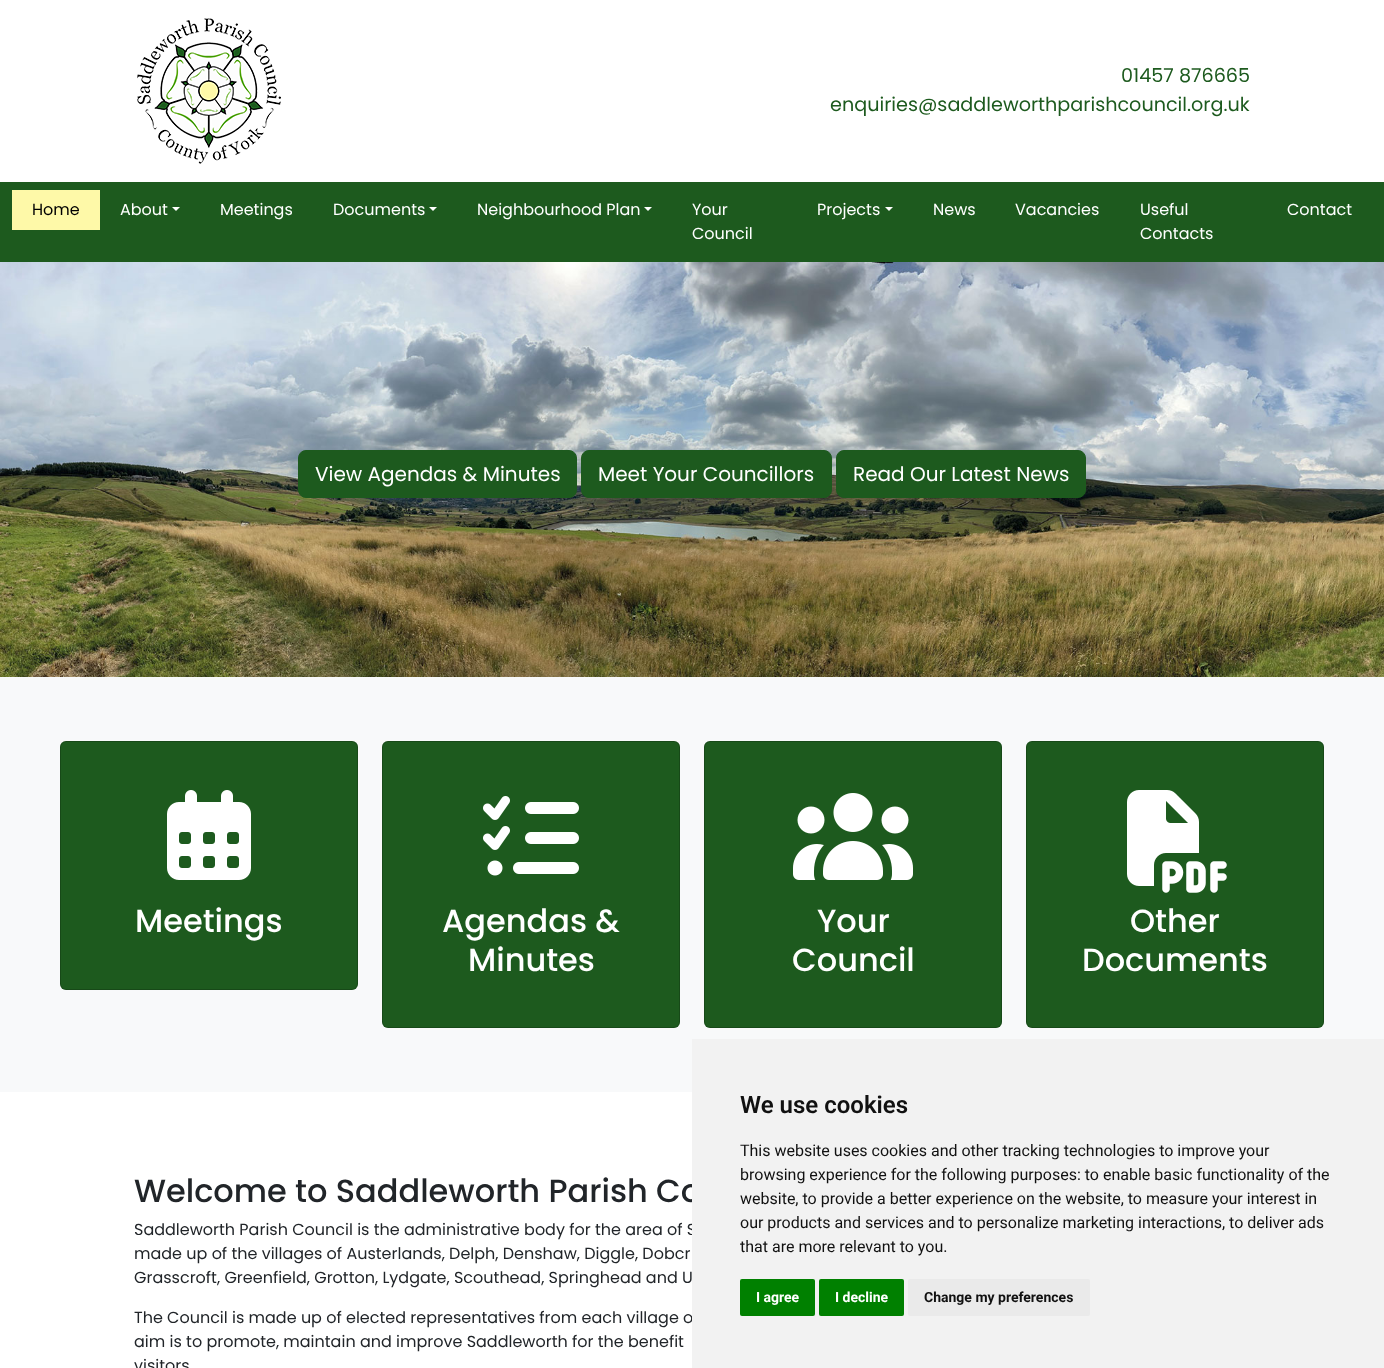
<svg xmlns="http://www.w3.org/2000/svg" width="1384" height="1368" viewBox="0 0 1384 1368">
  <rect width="100%" height="100%" fill="#fff"/>
  <image x="137" y="18" width="144" height="146" href="img/1.png"/>
  <path d="M0 182h1384v80H0z" fill="#1d5a1e"/>
  <path d="M12 190h88v40H12z" fill="#fef9a8"/>
  <path d="M172 207H180L176 211Z" fill="#fff"/>
  <path d="M429 207H437L433 211Z" fill="#fff"/>
  <path d="M644 207H652L648 211Z" fill="#fff"/>
  <path d="M885 207H893L889 211Z" fill="#fff"/>
  <image x="0" y="262" width="1384" height="415" href="img/2.png"/>
  <rect x="298.5" y="450.5" width="278" height="47" rx="7.5" fill="#1d5a1e" stroke="#1d5a1e"/>
  <rect x="581.5" y="450.5" width="250" height="47" rx="7.5" fill="#1d5a1e" stroke="#1d5a1e"/>
  <rect x="836.5" y="450.5" width="249" height="47" rx="7.5" fill="#1d5a1e" stroke="#1d5a1e"/>
  <path d="M0 677h1384v415H0z" fill="#f8f9fa"/>
  <rect x="60" y="741" width="298" height="249" rx="6" fill="#1d5a1e"/>
  <rect x="60.5" y="741.5" width="297" height="248" rx="5.5" fill="none" stroke="#0000002e"/>
  <image x="167" y="790" width="84" height="90" href="img/3.png"/>
  <rect x="382" y="741" width="298" height="287" rx="6" fill="#1d5a1e"/>
  <rect x="382.5" y="741.5" width="297" height="286" rx="5.5" fill="none" stroke="#0000002e"/>
  <image x="483" y="796" width="96" height="80" href="img/4.png"/>
  <rect x="704" y="741" width="298" height="287" rx="6" fill="#1d5a1e"/>
  <rect x="704.5" y="741.5" width="297" height="286" rx="5.5" fill="none" stroke="#0000002e"/>
  <image x="793" y="793" width="120" height="87" href="img/5.png"/>
  <rect x="1026" y="741" width="298" height="287" rx="6" fill="#1d5a1e"/>
  <rect x="1026.5" y="741.5" width="297" height="286" rx="5.5" fill="none" stroke="#0000002e"/>
  <image x="1127" y="790" width="100" height="103" href="img/6.png"/>
  <g font-family="Poppins" font-size="19.2" fill="#1d5a1e">
    <text x="1121" y="82">01457 876665</text>
    <text x="830" y="111">enquiries@saddleworthparishcouncil.org.uk</text>
  </g>
  <text x="32" y="215" font-family="Poppins" font-size="16" fill="#000">Home</text>
  <g font-family="Poppins" font-size="16" fill="#fff">
    <text x="120" y="215">About</text>
    <text x="220" y="215">Meetings</text>
    <text x="333" y="215">Documents</text>
    <text x="477" y="215">Neighbourhood Plan</text>
    <text x="692" y="215">Your</text>
    <text x="692" y="239">Council</text>
    <text x="817" y="215">Projects</text>
    <text x="933" y="215">News</text>
    <text x="1015" y="215">Vacancies</text>
    <text x="1140" y="215">Useful</text>
    <text x="1140" y="239">Contacts</text>
    <text x="1287" y="215">Contact</text>
  </g>
  <g font-family="Poppins" font-size="20" fill="#fff">
    <text x="315" y="481">View Agendas &amp; Minutes</text>
    <text x="598" y="481">Meet Your Councillors</text>
    <text x="853" y="481">Read Our Latest News</text>
  </g>
  <g font-family="Poppins" font-size="32" font-weight="500" fill="#fff">
    <text x="135" y="932">Meetings</text>
    <text x="442" y="932">Agendas &amp;</text>
    <text x="468" y="971">Minutes</text>
    <text x="817" y="932">Your</text>
    <text x="792" y="971">Council</text>
    <text x="1130" y="932">Other</text>
    <text x="1082" y="971">Documents</text>
  </g>
  <text x="134" y="1202" font-family="Poppins" font-size="32" font-weight="500" fill="#212529">Welcome to Saddleworth Parish Co</text>
  <g font-family="Poppins" font-size="16" fill="#212529">
    <text x="134" y="1235">Saddleworth Parish Council is the administrative body for the area of S</text>
    <text x="134" y="1259">made up of the villages of Austerlands, Delph, Denshaw, Diggle, Dobcr</text>
    <text x="134" y="1283">Grasscroft, Greenfield, Grotton, Lydgate, Scouthead, Springhead and U</text>
    <text x="134" y="1323">The Council is made up of elected representatives from each village o</text>
    <text x="134" y="1347">aim is to promote, maintain and improve Saddleworth for the benefit</text>
    <text x="134" y="1371">visitors</text>
  </g>
  <path d="M692 1039h692v329H692z" fill="#f2f2f2"/>
  <text x="740" y="1113" font-family="Roboto" font-size="24" font-weight="600" fill="#111">We use cookies</text>
  <g font-family="Roboto" font-size="16" fill="#111">
    <text x="740" y="1156">This website uses cookies and other tracking technologies to improve your</text>
    <text x="740" y="1180">browsing experience for the following purposes: to enable basic functionality of the</text>
    <text x="740" y="1204">website, to provide a better experience on the website, to measure your interest in</text>
    <text x="740" y="1228">our products and services and to personalize marketing interactions, to deliver ads</text>
    <text x="740" y="1252">that are more relevant to you.</text>
  </g>
  <rect x="740" y="1279" width="75" height="37" rx="2" fill="#008000"/>
  <text x="756" y="1302" font-family="Roboto" font-size="14" font-weight="bold" fill="#fff">I agree</text>
  <rect x="819" y="1279" width="85" height="37" rx="2" fill="#008000"/>
  <text x="835" y="1302" font-family="Roboto" font-size="14" font-weight="bold" fill="#fff">I decline</text>
  <rect x="908" y="1279" width="182" height="37" rx="2" fill="#eaeaea"/>
  <text x="924" y="1302" font-family="Roboto" font-size="14" font-weight="bold" fill="#111">Change my preferences</text>
</svg>
